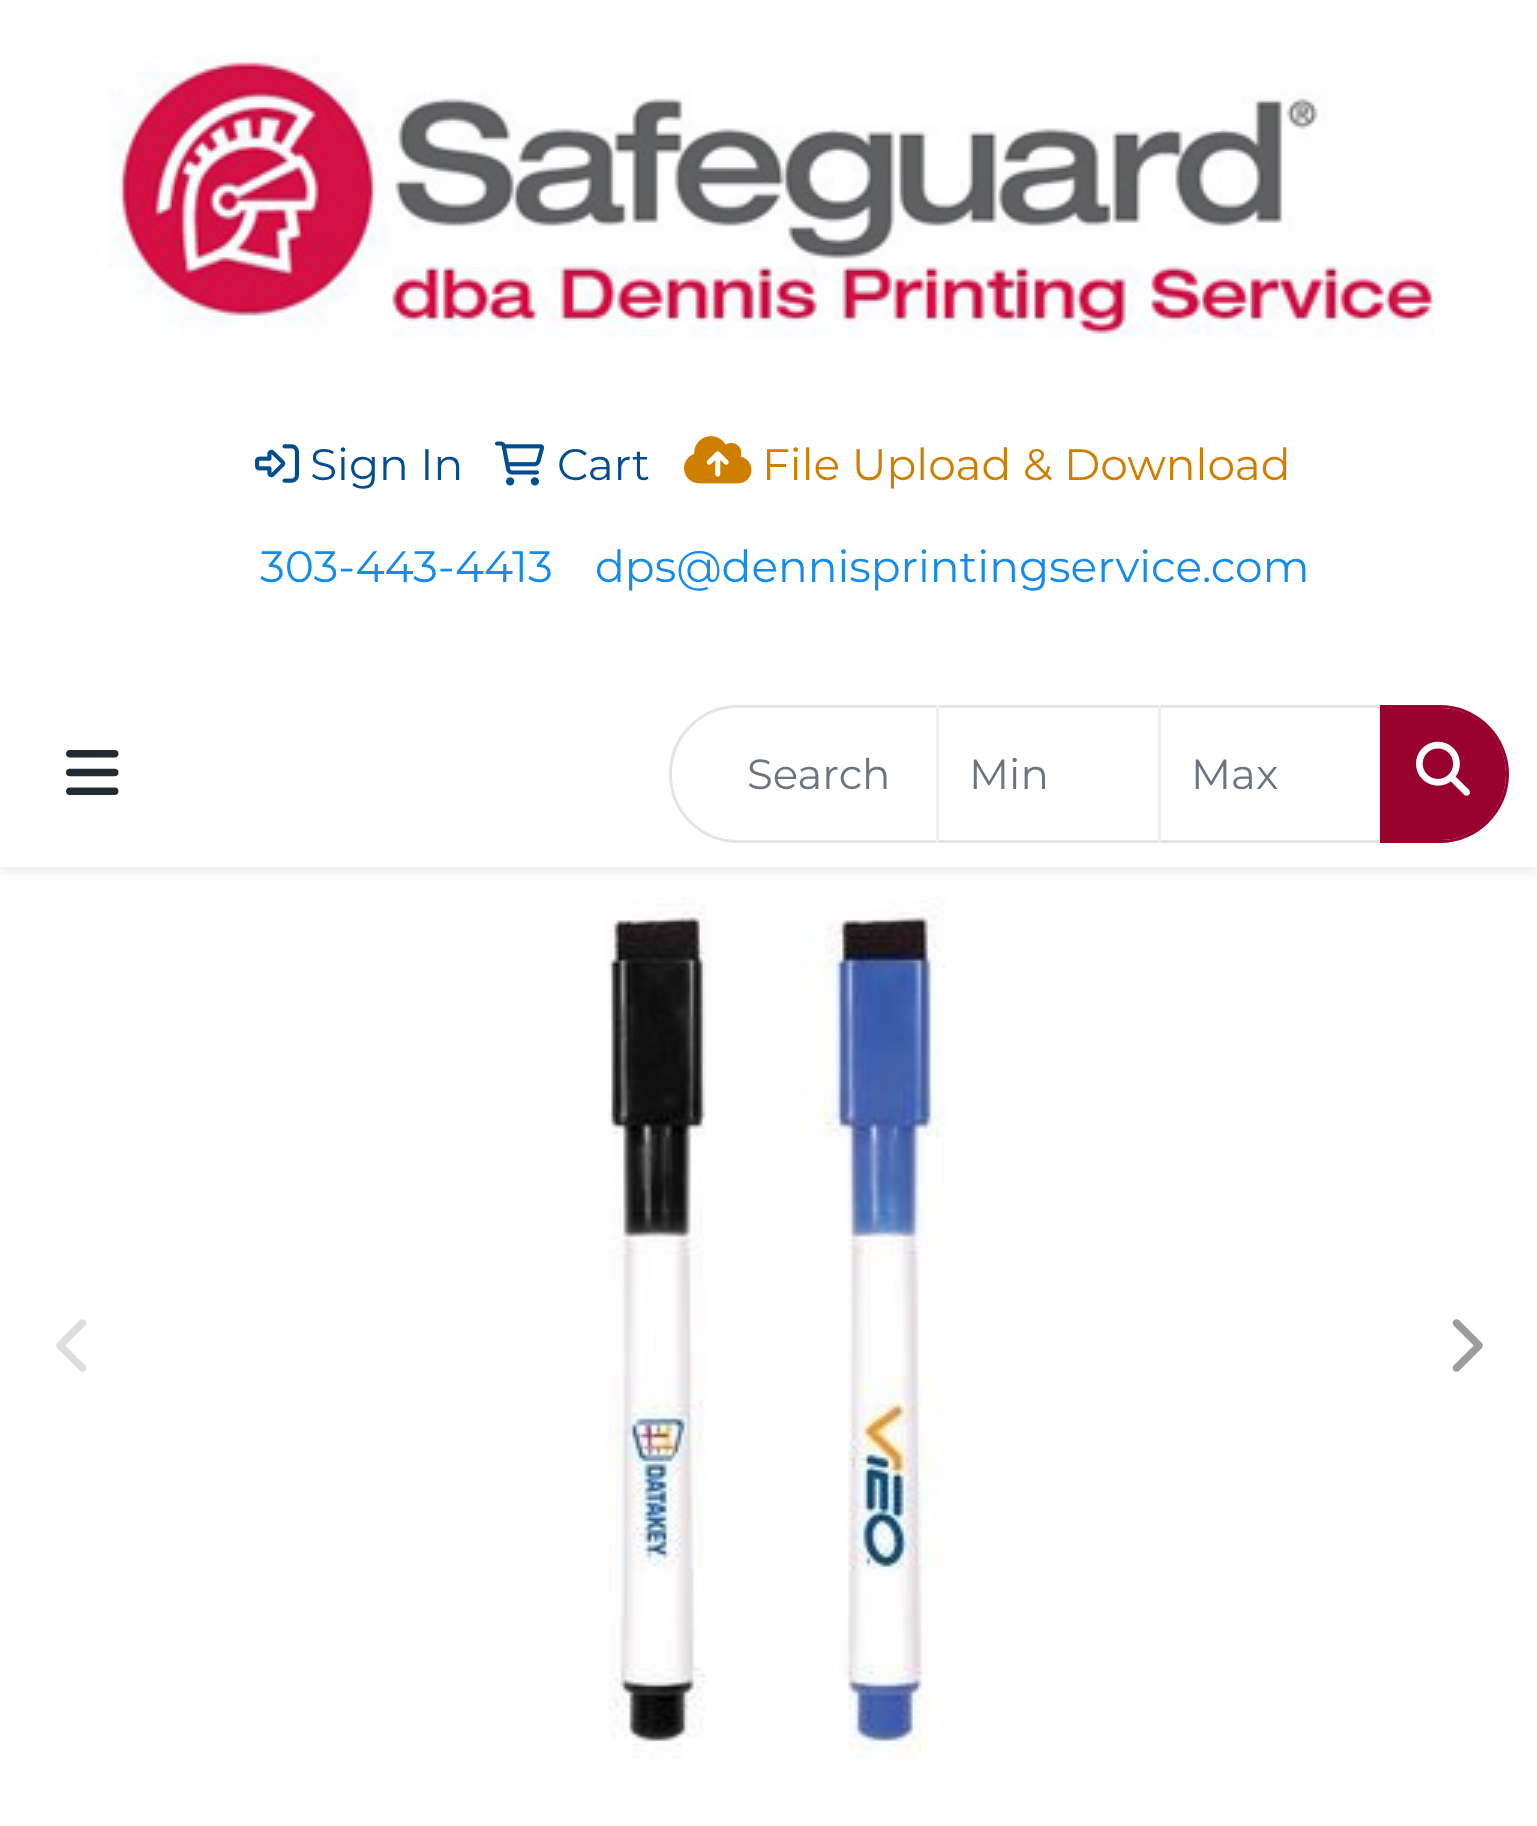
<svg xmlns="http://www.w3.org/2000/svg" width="1537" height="1826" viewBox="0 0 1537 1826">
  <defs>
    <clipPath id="clip1"><path d="M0 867h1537v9H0z"/></clipPath>
  </defs>
  <rect width="100%" height="100%" fill="#fff"/>
  <image x="108" y="54" width="1326" height="285" href="img/1.png"/>
  <image x="255" y="444" width="44" height="39" href="img/2.png"/>
  <image x="495" y="441" width="50" height="45" href="img/3.png"/>
  <image x="684" y="436" width="68" height="48" href="img/4.png"/>
  <g clip-path="url(#clip1)">
    <path d="M0 687h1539v186H0z" fill="#00000012" filter="blur(6px)"/>
  </g>
  <image x="66" y="750" width="53" height="45" href="img/5.png"/>
  <path d="M738 706.5H937.5V841.5H738C700.5 841.5 670.5 811.5 670.5 774C670.5 736.5 700.5 706.5 738 706.5Z" fill="none" stroke="#e4e4e4" stroke-width="3"/>
  <path d="M936 705h447v3H936z" fill="#e4e4e4"/>
  <path d="M936 840h447v3H936z" fill="#e4e4e4"/>
  <path d="M936 705h3v138H936z" fill="#efefef"/>
  <path d="M1158 705h3v138H1158z" fill="#efefef"/>
  <path d="M1380 708H1440C1476.5 708 1506 737.5 1506 774C1506 810.5 1476.5 840 1440 840H1380Z" fill="#98012e"/>
  <path d="M1380 705H1440C1478 705 1509 736 1509 774C1509 812 1478 843 1440 843H1380ZM1380 708H1440C1476 708 1506 738 1506 774C1506 810 1476 840 1440 840H1380Z" fill="#98012e" fill-rule="evenodd"/>
  <image x="1416" y="741" width="54" height="55" href="img/6.png"/>
  <image x="56" y="897" width="1427" height="863" href="img/7.png"/>
  <g font-family="Montserrat" font-size="44" font-weight="100" fill="#004d90">
    <text x="310" y="480">Sign In</text>
    <text x="557" y="480">Cart</text>
  </g>
  <text x="762" y="480" font-family="Montserrat" font-size="44" font-weight="100" fill="#cf7f00">File Upload &amp; Download</text>
  <g font-family="Montserrat" font-size="44" font-weight="100" fill="#168beb">
    <text x="260" y="582">303-443-4413</text>
    <text x="595" y="582">dps@dennisprintingservice.com</text>
  </g>
  <g font-family="Montserrat" font-size="42" font-weight="100" fill="#6c757d">
    <text x="747" y="789">Search</text>
    <text x="969" y="789">Min</text>
    <text x="1191" y="789">Max</text>
  </g>
</svg>
